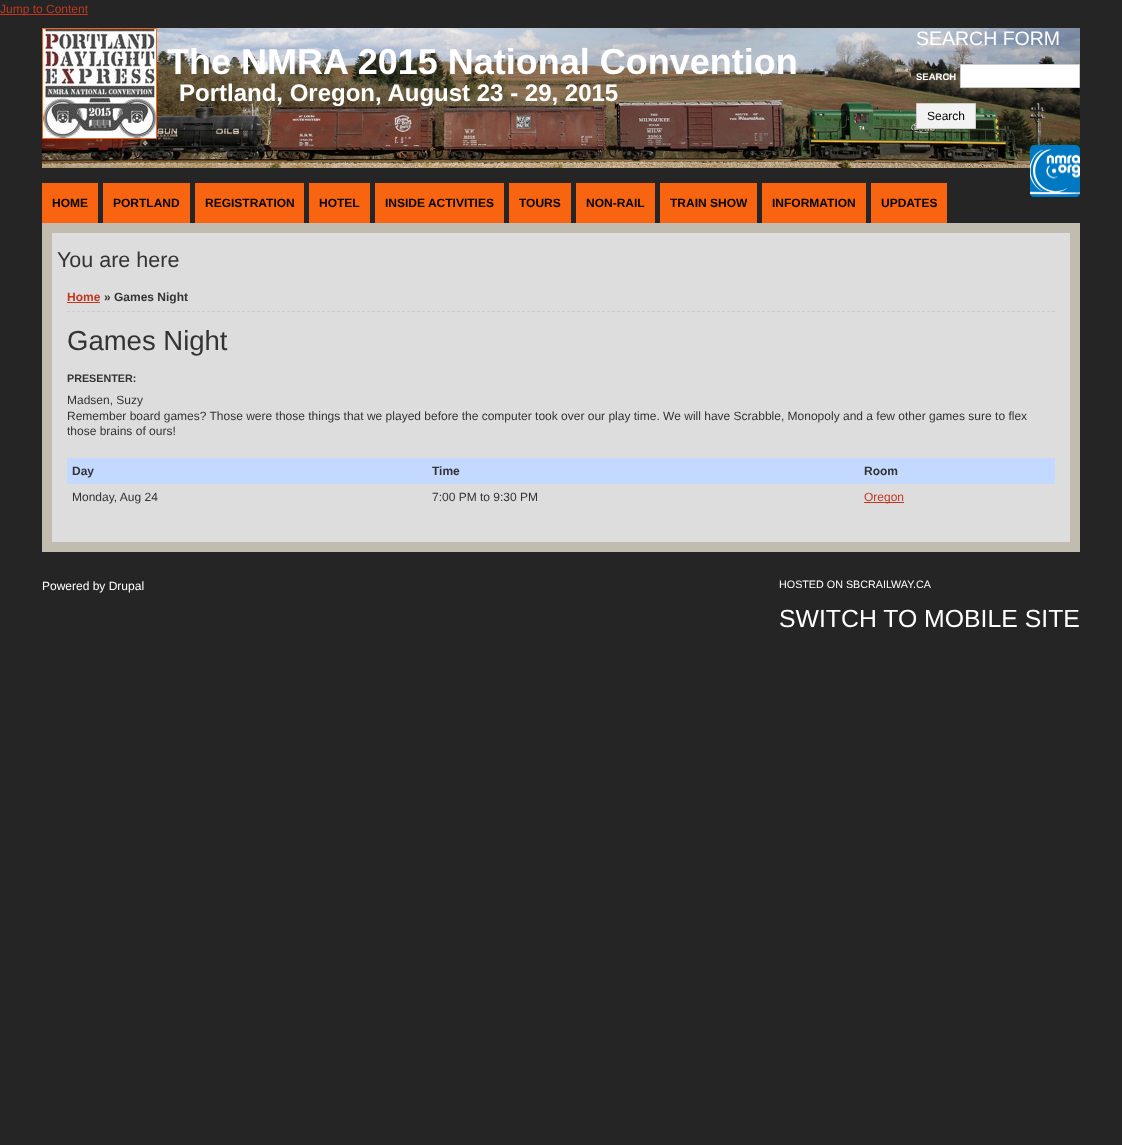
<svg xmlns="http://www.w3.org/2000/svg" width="1122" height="1145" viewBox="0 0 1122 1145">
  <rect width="100%" height="100%" fill="#252525"/>
  <path d="M0 14h88v1H0z" fill="#c23722"/>
  <image x="42" y="28" width="1038" height="140" href="img/1.png"/>
  <path d="M42.5 28.5h114v110H42.5z" fill="none" stroke="#f96410"/>
  <image x="43" y="29" width="113" height="109" href="img/2.png"/>
  <path d="M960.5 64.5h119v23H960.5z" fill="#fff" stroke="#ccc"/>
  <path d="M916.5 103.5h59v25H916.5z" fill="#f2f2f2" stroke="#ccc"/>
  <image x="1030" y="145" width="50" height="52" href="img/3.png"/>
  <path d="M42 183h56v40H42z" fill="#f96410"/>
  <path d="M103 183h87v40H103z" fill="#f96410"/>
  <path d="M195 183h109v40H195z" fill="#f96410"/>
  <path d="M309 183h61v40H309z" fill="#f96410"/>
  <path d="M375 183h129v40H375z" fill="#f96410"/>
  <path d="M509 183h62v40H509z" fill="#f96410"/>
  <path d="M576 183h79v40H576z" fill="#f96410"/>
  <path d="M660 183h97v40H660z" fill="#f96410"/>
  <path d="M762 183h104v40H762z" fill="#f96410"/>
  <path d="M871 183h76v40H871z" fill="#f96410"/>
  <path d="M47 228h1028v319H47z" fill="none" stroke="#c2bcb0" stroke-width="10"/>
  <path d="M52 233h1018v309H52z" fill="#ddd"/>
  <path d="M67 311.5H1055" fill="none" stroke="#ccc" stroke-dasharray="3 2"/>
  <path d="M67 302h33v1H67z" fill="#c23722"/>
  <path d="M67 458h988v26H67z" fill="#c3d9ff"/>
  <path d="M864 502h40v1H864z" fill="#c23722"/>
  <text x="0" y="13" font-family="Liberation Sans" font-size="12" fill="#c23722">Jump to Content</text>
  <text x="167" y="74" font-family="Liberation Sans" font-size="36" font-weight="bold" fill="#fff">The NMRA 2015 National Convention</text>
  <text x="179" y="101" font-family="Liberation Sans" font-size="24" font-weight="bold" fill="#fff">Portland, Oregon, August 23 - 29, 2015</text>
  <text x="916" y="45" font-family="Liberation Sans" font-size="19.5" fill="#fff">SEARCH FORM</text>
  <text x="916" y="80" font-family="Liberation Sans" font-size="9.5" font-weight="bold" fill="#fff">SEARCH</text>
  <text x="927" y="120" font-family="Liberation Sans" font-size="12" fill="#000">Search</text>
  <g font-family="Liberation Sans" font-size="12" font-weight="bold" fill="#000">
    <text x="52" y="207">HOME</text>
    <text x="113" y="207">PORTLAND</text>
    <text x="205" y="207">REGISTRATION</text>
    <text x="319" y="207">HOTEL</text>
    <text x="385" y="207">INSIDE ACTIVITIES</text>
    <text x="519" y="207">TOURS</text>
    <text x="586" y="207">NON-RAIL</text>
    <text x="670" y="207">TRAIN SHOW</text>
    <text x="772" y="207">INFORMATION</text>
    <text x="881" y="207">UPDATES</text>
  </g>
  <text x="57" y="267" font-family="Liberation Sans" font-size="21.5" fill="#333">You are here</text>
  <text x="67" y="301" font-family="Liberation Sans" font-size="12" font-weight="bold" fill="#c23722">Home</text>
  <text x="104" y="301" font-family="Liberation Sans" font-size="12" font-weight="bold" fill="#333">» Games Night</text>
  <text x="67" y="350" font-family="Liberation Sans" font-size="27.5" fill="#333">Games Night</text>
  <text x="67" y="382" font-family="Liberation Sans" font-size="10.75" font-weight="bold" fill="#333">PRESENTER:</text>
  <g font-family="Liberation Sans" font-size="12" fill="#333">
    <text x="67" y="404">Madsen, Suzy</text>
    <text x="67" y="420">Remember board games? Those were those things that we played before the computer took over our play time. We will have Scrabble, Monopoly and a few other games sure to flex</text>
    <text x="67" y="435">those brains of ours!</text>
  </g>
  <g font-family="Liberation Sans" font-size="12" font-weight="bold" fill="#333">
    <text x="72" y="475">Day</text>
    <text x="432" y="475">Time</text>
    <text x="864" y="475">Room</text>
  </g>
  <g font-family="Liberation Sans" font-size="12" fill="#333">
    <text x="72" y="501">Monday, Aug 24</text>
    <text x="432" y="501">7:00 PM to 9:30 PM</text>
  </g>
  <text x="864" y="501" font-family="Liberation Sans" font-size="12" fill="#c23722">Oregon</text>
  <text x="42" y="590" font-family="Liberation Sans" font-size="12" fill="#fff">Powered by Drupal</text>
  <text x="779" y="588" font-family="Liberation Sans" font-size="10.75" fill="#fff">HOSTED ON SBCRAILWAY.CA</text>
  <text x="779" y="627" font-family="Liberation Sans" font-size="24.8" fill="#fff">SWITCH TO MOBILE SITE</text>
</svg>
